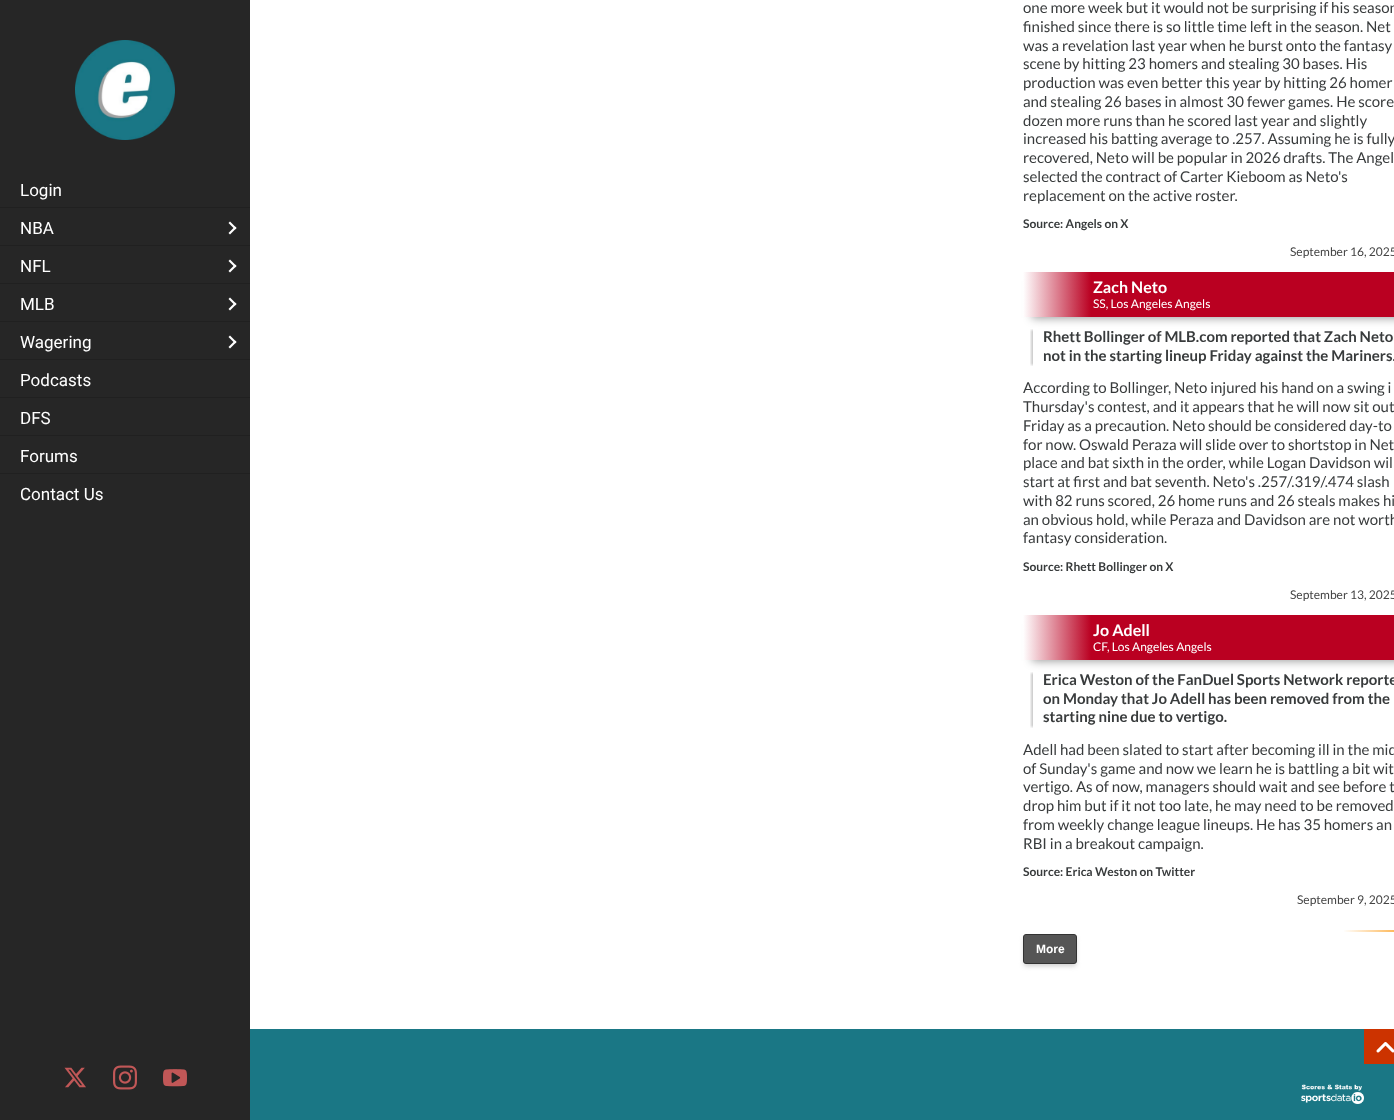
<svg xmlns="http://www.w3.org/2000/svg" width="1394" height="1120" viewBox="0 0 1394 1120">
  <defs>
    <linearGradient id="g1" gradientUnits="userSpaceOnUse" x1="1023" y1="295" x2="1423" y2="295"><stop offset="0" stop-color="#fff"/><stop offset="0.17" stop-color="#ba0021"/></linearGradient>
    <clipPath id="clip1"><path d="M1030 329h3v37H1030z"/></clipPath>
    <linearGradient id="g2" gradientUnits="userSpaceOnUse" x1="1023" y1="638" x2="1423" y2="638"><stop offset="0" stop-color="#fff"/><stop offset="0.17" stop-color="#ba0021"/></linearGradient>
    <clipPath id="clip2"><path d="M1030 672h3v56H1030z"/></clipPath>
    <linearGradient id="g3" gradientUnits="userSpaceOnUse" x1="1023" y1="-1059" x2="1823" y2="-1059"><stop offset="0.2" stop-color="#fff"/><stop offset="0.4" stop-color="#fff"/><stop offset="0.5" stop-color="#fd9200"/><stop offset="0.55" stop-color="#c30"/><stop offset="0.7" stop-color="#fff"/><stop offset="1" stop-color="#fff"/></linearGradient>
  </defs>
  <rect width="100%" height="100%" fill="#fff"/>
  <path d="M0 0h250v1120H0z" fill="#262626"/>
  <image x="75" y="40" width="100" height="100" href="img/1.png"/>
  <path d="M0 207h250v1H0z" fill="#202020"/>
  <path d="M230 221.5L236.5 228L235 229.5L228.5 223Z" fill="#fff"/>
  <path d="M235 226.5L236.5 228L230 234.5L228.5 233Z" fill="#fff"/>
  <path d="M0 245h250v1H0z" fill="#202020"/>
  <path d="M230 259.5L236.5 266L235 267.5L228.5 261Z" fill="#fff"/>
  <path d="M235 264.5L236.5 266L230 272.5L228.5 271Z" fill="#fff"/>
  <path d="M0 283h250v1H0z" fill="#202020"/>
  <path d="M230 297.5L236.5 304L235 305.5L228.5 299Z" fill="#fff"/>
  <path d="M235 302.5L236.5 304L230 310.5L228.5 309Z" fill="#fff"/>
  <path d="M0 321h250v1H0z" fill="#202020"/>
  <path d="M230 335.5L236.5 342L235 343.5L228.5 337Z" fill="#fff"/>
  <path d="M235 340.5L236.5 342L230 348.5L228.5 347Z" fill="#fff"/>
  <path d="M0 359h250v1H0z" fill="#202020"/>
  <path d="M0 397h250v1H0z" fill="#202020"/>
  <path d="M0 435h250v1H0z" fill="#202020"/>
  <path d="M0 473h250v1H0z" fill="#202020"/>
  <image x="64" y="1067" width="22" height="21" href="img/2.png"/>
  <image x="113" y="1065" width="24" height="25" href="img/3.png"/>
  <image x="163" y="1069" width="24" height="18" href="img/4.png"/>
  <path d="M1032 281h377v37H1032z" fill="#00000066" filter="blur(5px)"/>
  <path d="M1023 272h371v45H1023z" fill="url(#g1)"/>
  <g clip-path="url(#clip1)">
    <path d="M1031 330h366v35H1031z" fill="#00000033" filter="blur(1px)"/>
  </g>
  <path d="M1032 624h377v37H1032z" fill="#00000066" filter="blur(5px)"/>
  <path d="M1023 615h371v45H1023z" fill="url(#g2)"/>
  <g clip-path="url(#clip2)">
    <path d="M1031 673h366v54H1031z" fill="#00000033" filter="blur(1px)"/>
  </g>
  <path d="M1344 930h50v2H1344z" fill="url(#g3)"/>
  <rect x="1024" y="938" width="52" height="28" rx="2" fill="#ccc" filter="blur(2.5px)"/>
  <rect x="1023.5" y="934.5" width="53" height="29" rx="2.5" fill="#555" stroke="#333"/>
  <path d="M250 1029h1114v35H250z" fill="#1a7785"/>
  <path d="M1364 1029h30v35H1364z" fill="#c30"/>
  <image x="1376" y="1042" width="18" height="11" href="img/5.png"/>
  <path d="M250 1064h1144v56H250z" fill="#1a7785"/>
  <image x="1301" y="1084" width="63" height="20" href="img/6.png"/>
  <g font-family="Roboto" font-size="17" fill="#fff">
    <text x="20" y="196">Login</text>
    <text x="20" y="234">NBA</text>
    <text x="20" y="272">NFL</text>
    <text x="20" y="310">MLB</text>
    <text x="20" y="348">Wagering</text>
    <text x="20" y="386">Podcasts</text>
    <text x="20" y="424">DFS</text>
    <text x="20" y="462">Forums</text>
    <text x="20" y="500">Contact Us</text>
  </g>
  <g font-family="Lato" font-size="15" fill="#383b3c">
    <text x="1023" y="13">one more week but it would not be surprising if his season</text>
    <text x="1023" y="32">finished since there is so little time left in the season. Net</text>
    <text x="1023" y="51">was a revelation last year when he burst onto the fantasy</text>
    <text x="1023" y="69">scene by hitting 23 homers and stealing 30 bases. His</text>
    <text x="1023" y="88">production was even better this year by hitting 26 homer</text>
    <text x="1023" y="107">and stealing 26 bases in almost 30 fewer games. He score</text>
    <text x="1023" y="126">dozen more runs than he scored last year and slightly</text>
    <text x="1023" y="144">increased his batting average to .257. Assuming he is fully</text>
    <text x="1023" y="163">recovered, Neto will be popular in 2026 drafts. The Angel</text>
    <text x="1023" y="182">selected the contract of Carter Kieboom as Neto's</text>
    <text x="1023" y="201">replacement on the active roster.</text>
  </g>
  <text x="1023" y="228" font-family="Lato" font-size="12" font-weight="bold" fill="#383b3c">Source: Angels on X</text>
  <text x="1290" y="256" font-family="Lato" font-size="12" fill="#444">September 16, 2025</text>
  <text x="1093" y="293" font-family="Lato" font-size="16" font-weight="bold" fill="#fff">Zach Neto</text>
  <text x="1093" y="308" font-family="Lato" font-size="12" fill="#fff">SS, Los Angeles Angels</text>
  <g font-family="Lato" font-size="15" font-weight="bold" fill="#383b3c">
    <text x="1043" y="342">Rhett Bollinger of MLB.com reported that Zach Neto</text>
    <text x="1043" y="361">not in the starting lineup Friday against the Mariners.</text>
  </g>
  <g font-family="Lato" font-size="15" fill="#383b3c">
    <text x="1023" y="393">According to Bollinger, Neto injured his hand on a swing i</text>
    <text x="1023" y="412">Thursday's contest, and it appears that he will now sit out</text>
    <text x="1023" y="431">Friday as a precaution. Neto should be considered day-to</text>
    <text x="1023" y="450">for now. Oswald Peraza will slide over to shortstop in Net</text>
    <text x="1023" y="468">place and bat sixth in the order, while Logan Davidson wil</text>
    <text x="1023" y="487">start at first and bat seventh. Neto's .257/.319/.474 slash</text>
    <text x="1023" y="506">with 82 runs scored, 26 home runs and 26 steals makes hi</text>
    <text x="1023" y="525">an obvious hold, while Peraza and Davidson are not worth</text>
    <text x="1023" y="543">fantasy consideration.</text>
  </g>
  <text x="1023" y="571" font-family="Lato" font-size="12" font-weight="bold" fill="#383b3c">Source: Rhett Bollinger on X</text>
  <text x="1290" y="599" font-family="Lato" font-size="12" fill="#444">September 13, 2025</text>
  <text x="1093" y="636" font-family="Lato" font-size="16" font-weight="bold" fill="#fff">Jo Adell</text>
  <g font-family="Lato" font-size="12" fill="#fff">
    <text x="1093" y="651">CF</text>
    <text x="1107" y="651">, Los Angeles Angels</text>
  </g>
  <g font-family="Lato" font-size="15" font-weight="bold" fill="#383b3c">
    <text x="1043" y="685">Erica Weston of the FanDuel Sports Network reporte</text>
    <text x="1043" y="704">on Monday that Jo Adell has been removed from the</text>
    <text x="1043" y="722">starting nine due to vertigo.</text>
  </g>
  <g font-family="Lato" font-size="15" fill="#383b3c">
    <text x="1023" y="755">Adell had been slated to start after becoming ill in the mid</text>
    <text x="1023" y="774">of Sunday's game and now we learn he is battling a bit wit</text>
    <text x="1023" y="792">vertigo. As of now, managers should wait and see before t</text>
    <text x="1023" y="811">drop him but if it not too late, he may need to be removed</text>
    <text x="1023" y="830">from weekly change league lineups. He has 35 homers an</text>
    <text x="1023" y="849">RBI in a breakout campaign.</text>
  </g>
  <text x="1023" y="876" font-family="Lato" font-size="12" font-weight="bold" fill="#383b3c">Source: Erica Weston on Twitter</text>
  <text x="1297" y="904" font-family="Lato" font-size="12" fill="#444">September 9, 2025</text>
  <text x="1036" y="953" font-family="Liberation Sans" font-size="12" font-weight="bold" fill="#fff">More</text>
</svg>
